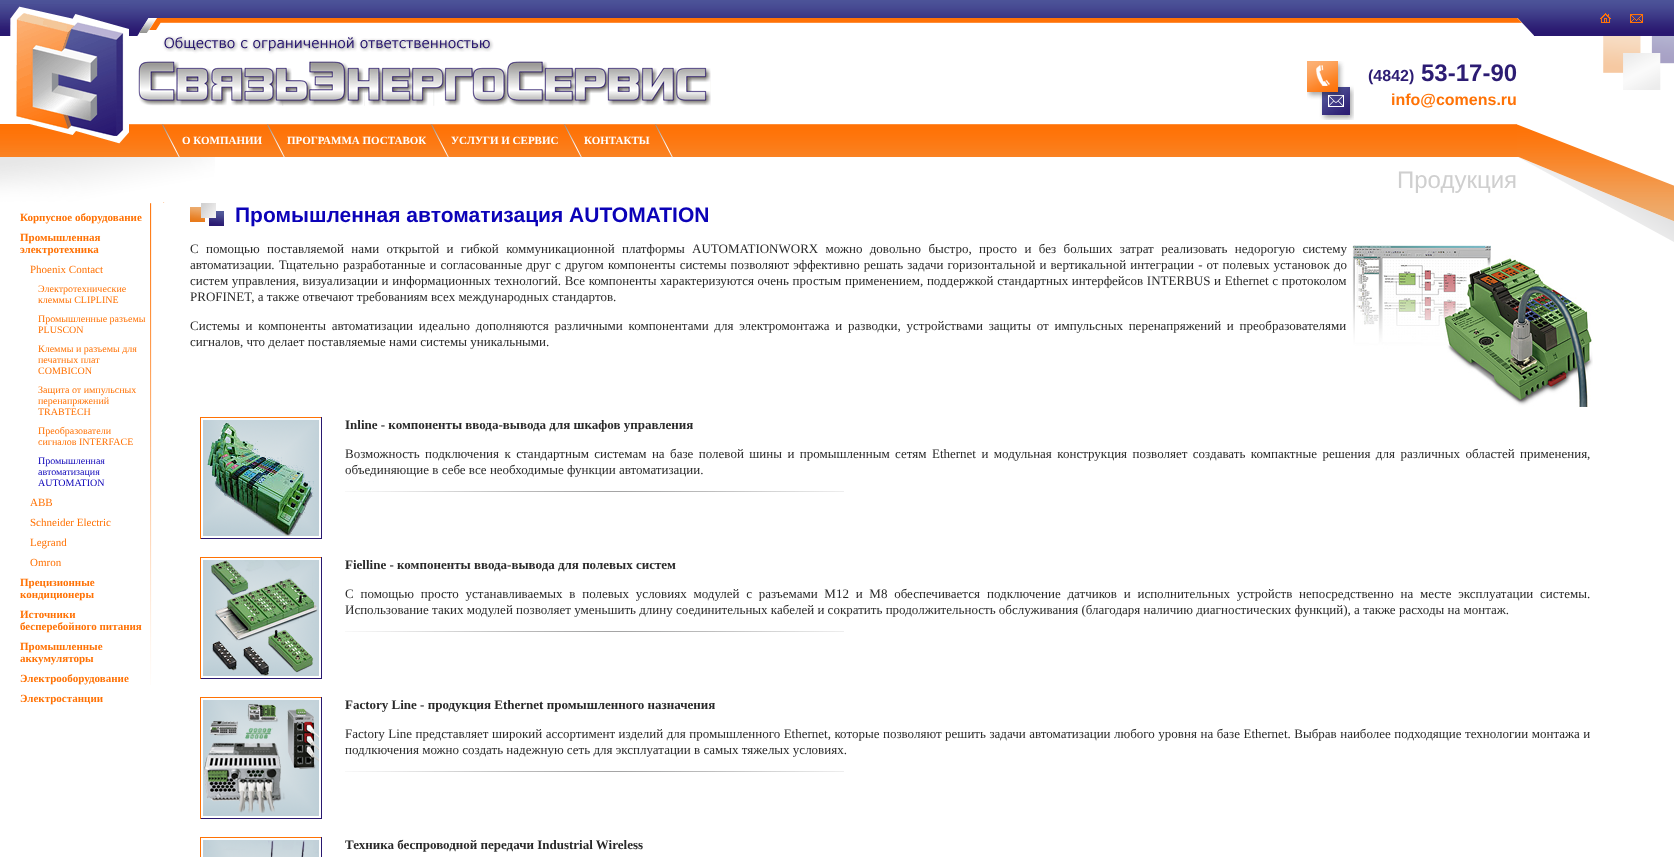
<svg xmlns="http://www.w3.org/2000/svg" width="1674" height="857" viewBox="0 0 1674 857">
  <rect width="100%" height="100%" fill="#fff"/>
  <image x="0" y="0" width="129" height="157" href="img/1.png"/>
  <image x="129" y="0" width="33" height="36" href="img/2.png"/>
  <image x="162" y="0" width="1355" height="23" href="img/3.png"/>
  <image x="1517" y="0" width="83" height="36" href="img/4.png"/>
  <image x="1517" y="18" width="17" height="18" href="img/5.png"/>
  <image x="1600" y="0" width="74" height="36" href="img/6.png"/>
  <image x="1600" y="13" width="11" height="10" href="img/7.png"/>
  <image x="1630" y="14" width="13" height="9" href="img/8.png"/>
  <image x="138" y="61" width="24" height="45" href="img/9.png"/>
  <image x="162" y="36" width="549" height="70" href="img/10.png"/>
  <image x="1307" y="61" width="47" height="59" href="img/11.png"/>
  <image x="1603" y="36" width="71" height="54" href="img/12.png"/>
  <image x="129" y="124" width="33" height="33" href="img/13.png"/>
  <image x="180" y="124" width="1337" height="33" href="img/14.png"/>
  <image x="162" y="124" width="18" height="33" href="img/15.png"/>
  <image x="267" y="124" width="18" height="33" href="img/15.png"/>
  <image x="431" y="124" width="18" height="33" href="img/15.png"/>
  <image x="564" y="124" width="18" height="33" href="img/15.png"/>
  <image x="655" y="124" width="18" height="33" href="img/15.png"/>
  <image x="1517" y="124" width="83" height="33" href="img/16.png"/>
  <image x="0" y="157" width="215" height="46" href="img/17.png"/>
  <image x="1518" y="157" width="156" height="46" href="img/18.png"/>
  <image x="150" y="203" width="2" height="482" href="img/19.png"/>
  <image x="190" y="203" width="34" height="23" href="img/20.png"/>
  <image x="1352" y="245" width="241" height="162" href="img/21.png"/>
  <path d="M200 417h122v1H200z" fill="#ff7205"/>
  <path d="M321 417h1v122H321z" fill="#291870"/>
  <path d="M200 538h122v1H200z" fill="#291870"/>
  <path d="M200 417h1v122H200z" fill="#ff7205"/>
  <image x="203" y="420" width="116" height="116" href="img/22.png"/>
  <image x="345" y="491" width="499" height="1" href="img/23.png"/>
  <path d="M200 557h122v1H200z" fill="#ff7205"/>
  <path d="M321 557h1v122H321z" fill="#291870"/>
  <path d="M200 678h122v1H200z" fill="#291870"/>
  <path d="M200 557h1v122H200z" fill="#ff7205"/>
  <image x="203" y="560" width="116" height="116" href="img/24.png"/>
  <image x="345" y="631" width="499" height="1" href="img/23.png"/>
  <path d="M200 697h122v1H200z" fill="#ff7205"/>
  <path d="M321 697h1v122H321z" fill="#291870"/>
  <path d="M200 818h122v1H200z" fill="#291870"/>
  <path d="M200 697h1v122H200z" fill="#ff7205"/>
  <image x="203" y="700" width="116" height="116" href="img/25.png"/>
  <image x="345" y="771" width="499" height="1" href="img/23.png"/>
  <path d="M200 837h122v1H200z" fill="#ff7205"/>
  <path d="M200 837h1v20H200z" fill="#ff7205"/>
  <image x="203" y="840" width="116" height="17" href="img/26.png"/>
  <path d="M321 837h1v20H321z" fill="#291870"/>
  <image x="1603" y="203" width="71" height="39" href="img/27.png"/>
  <text x="1368" y="81" font-family="Liberation Sans" font-size="16" font-weight="bold" fill="#2c1c73">(4842)</text>
  <text x="1421" y="81" font-family="Liberation Sans" font-size="24" font-weight="bold" fill="#2c1c73">53-17-90</text>
  <text x="1391" y="105" font-family="Liberation Sans" font-size="16" font-weight="bold" fill="#ff7205">info@comens.ru</text>
  <g font-family="Liberation Serif" font-size="11" font-weight="bold" fill="#fff">
    <text x="182" y="144">О КОМПАНИИ</text>
    <text x="287" y="144">ПРОГРАММА ПОСТАВОК</text>
    <text x="451" y="144">УСЛУГИ И СЕРВИС</text>
    <text x="584" y="144">КОНТАКТЫ</text>
  </g>
  <text x="1397" y="188" font-family="Liberation Sans" font-size="24" fill="#cfcfcf">Продукция</text>
  <g font-family="Liberation Serif" font-size="11" font-weight="bold" fill="#ff7205">
    <text x="20" y="221">Корпусное оборудование</text>
    <text x="20" y="241">Промышленная</text>
    <text x="20" y="253">электротехника</text>
  </g>
  <text x="30" y="273" font-family="Liberation Serif" font-size="11" fill="#ff7205">Phoenix Contact</text>
  <g font-family="Liberation Serif" font-size="10" fill="#ff7205">
    <text x="38" y="292">Электротехнические</text>
    <text x="38" y="303">клеммы CLIPLINE</text>
    <text x="38" y="322">Промышленные разъемы</text>
    <text x="38" y="333">PLUSCON</text>
    <text x="38" y="352">Клеммы и разъемы для</text>
    <text x="38" y="363">печатных плат</text>
    <text x="38" y="374">COMBICON</text>
    <text x="38" y="393">Защита от импульсных</text>
    <text x="38" y="404">перенапряжений</text>
    <text x="38" y="415">TRABTECH</text>
    <text x="38" y="434">Преобразователи</text>
    <text x="38" y="445">сигналов INTERFACE</text>
  </g>
  <g font-family="Liberation Serif" font-size="10" fill="#0b02b8">
    <text x="38" y="464">Промышленная</text>
    <text x="38" y="475">автоматизация</text>
    <text x="38" y="486">AUTOMATION</text>
  </g>
  <g font-family="Liberation Serif" font-size="11" fill="#ff7205">
    <text x="30" y="506">ABB</text>
    <text x="30" y="526">Schneider Electric</text>
    <text x="30" y="546">Legrand</text>
    <text x="30" y="566">Omron</text>
  </g>
  <g font-family="Liberation Serif" font-size="11" font-weight="bold" fill="#ff7205">
    <text x="20" y="586">Прецизионные</text>
    <text x="20" y="598">кондиционеры</text>
    <text x="20" y="618">Источники</text>
    <text x="20" y="630">бесперебойного питания</text>
    <text x="20" y="650">Промышленные</text>
    <text x="20" y="662">аккумуляторы</text>
    <text x="20" y="682">Электрооборудование</text>
    <text x="20" y="702">Электростанции</text>
  </g>
  <text x="235" y="222" font-family="Liberation Sans" font-size="21" font-weight="bold" fill="#0b02b8">Промышленная автоматизация AUTOMATION</text>
  <g font-family="Liberation Serif" font-size="13" fill="#292929">
    <text x="190" y="253" word-spacing="4.1">С помощью поставляемой нами открытой и гибкой коммуникационной платформы AUTOMATIONWORX можно довольно быстро, просто и без больших затрат реализовать недорогую систему</text>
    <text x="190" y="269" word-spacing="0.8">автоматизации. Тщательно разработанные и согласованные друг с другом компоненты системы позволяют эффективно решать задачи горизонтальной и вертикальной интеграции - от полевых установок до</text>
    <text x="190" y="285" word-spacing="0.4">систем управления, визуализации и информационных технологий. Все компоненты характеризуются очень простым применением, поддержкой стандартных интерфейсов INTERBUS и Ethernet с протоколом</text>
    <text x="190" y="301">PROFINET, а также отвечают требованиям всех международных стандартов.</text>
    <text x="190" y="330" word-spacing="2.5">Системы и компоненты автоматизации идеально дополняются различными компонентами для электромонтажа и разводки, устройствами защиты от импульсных перенапряжений и преобразователями</text>
    <text x="190" y="346">сигналов, что делает поставляемые нами системы уникальными.</text>
  </g>
  <text x="345" y="429" font-family="Liberation Serif" font-size="13" font-weight="bold" fill="#292929">Inline - компоненты ввода-вывода для шкафов управления</text>
  <g font-family="Liberation Serif" font-size="13" fill="#292929">
    <text x="345" y="458" word-spacing="2.2">Возможность подключения к стандартным системам на базе полевой шины и промышленным сетям Ethernet и модульная конструкция позволяет создавать компактные решения для различных областей применения,</text>
    <text x="345" y="474">объединяющие в себе все необходимые функции автоматизации.</text>
  </g>
  <text x="345" y="569" font-family="Liberation Serif" font-size="13" font-weight="bold" fill="#292929">Fielline - компоненты ввода-вывода для полевых систем</text>
  <g font-family="Liberation Serif" font-size="13" fill="#292929">
    <text x="345" y="598" word-spacing="3.5">С помощью просто устанавливаемых в полевых условиях модулей с разъемами M12 и M8 обеспечивается</text>
    <text x="987" y="598" word-spacing="3.5">подключение датчиков и исполнительных устройств непосредственно на месте эксплуатации системы.</text>
    <text x="345" y="614">Использование таких модулей позволяет уменьшить длину соединительных кабелей и сократить продолжительность обслуживания (благодаря наличию диагностических функций), а также расходы на монтаж.</text>
  </g>
  <text x="345" y="709" font-family="Liberation Serif" font-size="13" font-weight="bold" fill="#292929">Factory Line - продукция Ethernet промышленного назначения</text>
  <g font-family="Liberation Serif" font-size="13" fill="#292929">
    <text x="345" y="738" word-spacing="0.25">Factory Line представляет широкий ассортимент изделий для промышленного Ethernet, которые позволяют решить задачи автоматизации любого уровня на базе Ethernet. Выбрав наиболее подходящие технологии монтажа и</text>
    <text x="345" y="754">подлкючения можно создать надежную сеть для эксплуатации в самых тяжелых условиях.</text>
  </g>
  <text x="345" y="849" font-family="Liberation Serif" font-size="13" font-weight="bold" fill="#292929">Техника беспроводной передачи Industrial Wireless</text>
</svg>
